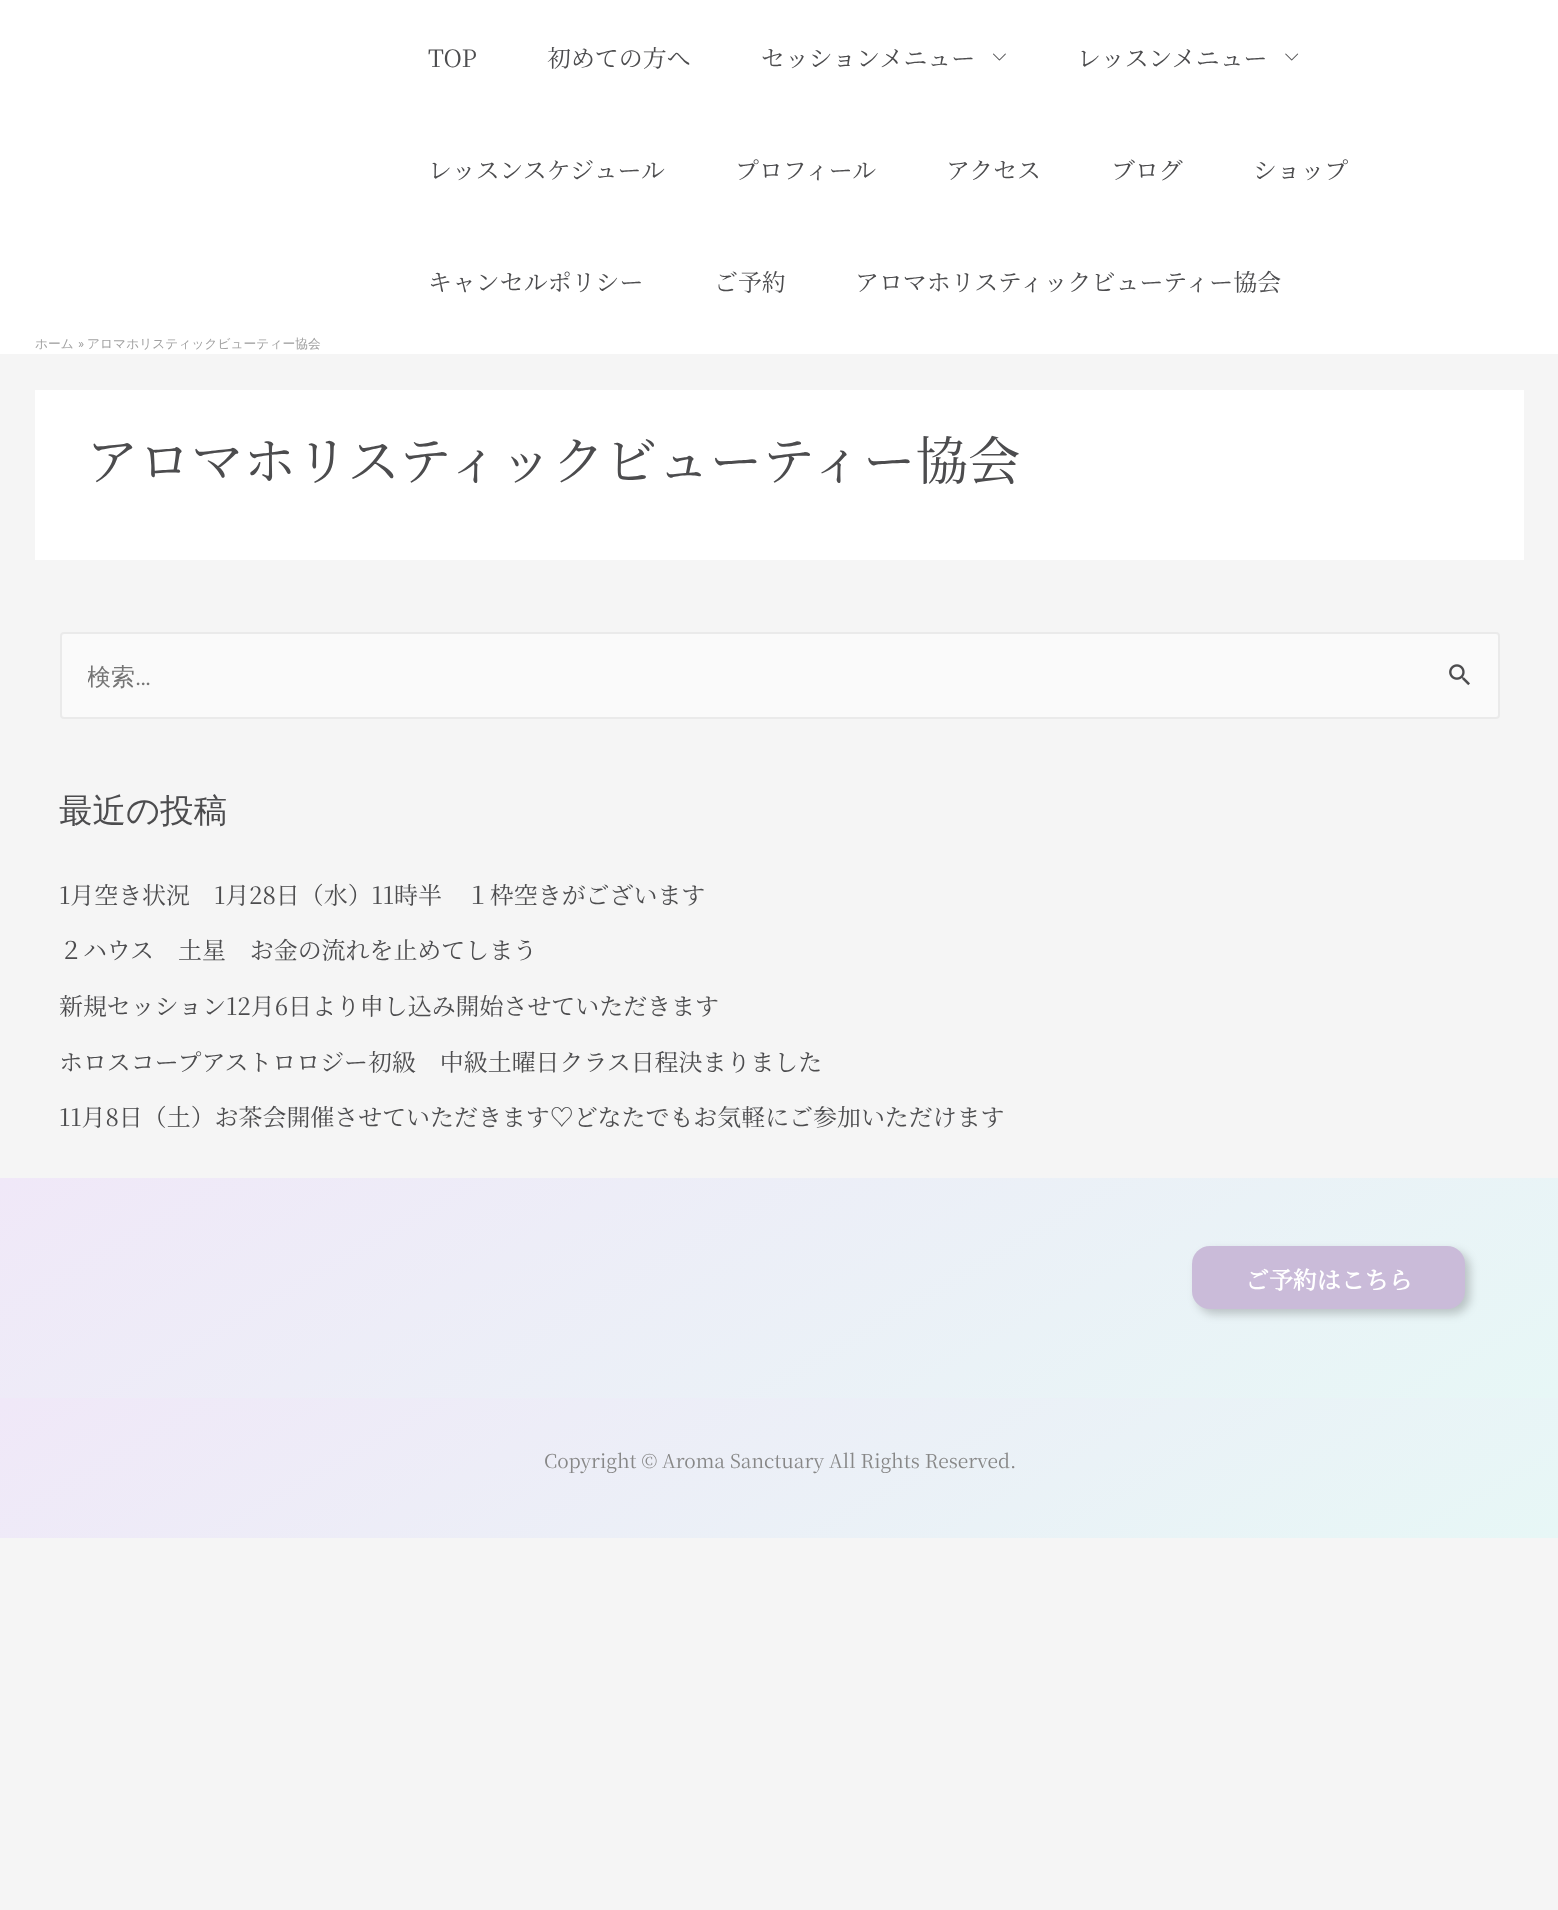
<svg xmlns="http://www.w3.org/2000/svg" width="1558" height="1910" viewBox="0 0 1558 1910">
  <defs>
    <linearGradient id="g1" gradientUnits="userSpaceOnUse" x1="537" y1="868" x2="1022" y2="1708"><stop offset="0" stop-color="#f0e8f8"/><stop offset="1" stop-color="#e7f7f6"/></linearGradient>
    <linearGradient id="g2" gradientUnits="userSpaceOnUse" x1="554" y1="1078" x2="1005" y2="1858"><stop offset="0" stop-color="#f0e8f8"/><stop offset="1" stop-color="#e7f7f6"/></linearGradient>
    <clipPath id="clip1"><path d="M88 662h1324v31H88z"/></clipPath>
  </defs>
  <rect width="100%" height="100%" fill="#f5f5f5"/>
  <path d="M0 0h1558v354H0z" fill="#fff"/>
  <image x="993" y="53" width="13" height="8" href="img/1.png"/>
  <image x="1285" y="53" width="14" height="8" href="img/2.png"/>
  <path d="M35 390h1489v170H35z" fill="#fff"/>
  <rect x="61" y="633" width="1438" height="85" rx="3" fill="#fafafa" stroke="#eaeaea" stroke-width="2"/>
  <image x="1449" y="664" width="21" height="22" href="img/3.png"/>
  <path d="M0 1178h1558v220H0z" fill="url(#g1)"/>
  <rect x="1197" y="1251" width="273" height="63" rx="18" fill="#00000033" filter="blur(5px)"/>
  <rect x="1192" y="1246" width="273" height="63" rx="18" fill="#cabbd9"/>
  <path d="M0 1398h1558v140H0z" fill="url(#g2)"/>
  <g font-family="Noto Serif JP" font-size="23.95" font-weight="200" fill="#4c4c4e">
    <text x="428" y="67">TOP</text>
    <text x="547" y="67">初めての方へ</text>
    <text x="761" y="67">セッションメニュー</text>
    <text x="1077" y="67">レッスンメニュー</text>
    <text x="428" y="179">レッスンスケジュール</text>
    <text x="735" y="179">プロフィール</text>
    <text x="946" y="179">アクセス</text>
    <text x="1111" y="179">ブログ</text>
    <text x="1253" y="179">ショップ</text>
    <text x="428" y="291">キャンセルポリシー</text>
    <text x="714" y="291">ご予約</text>
    <text x="855" y="291">アロマホリスティックビューティー協会</text>
  </g>
  <text x="35" y="348" font-family="WenQuanYi Zen Hei" font-size="12.75" font-weight="500" fill="#a1a1a1">ホーム</text>
  <text x="78" y="348" font-family="Roboto" font-size="12.75" fill="#a1a1a1">»</text>
  <text x="87" y="348" font-family="WenQuanYi Zen Hei" font-size="12.75" font-weight="500" fill="#a1a1a1">アロマホリスティックビューティー協会</text>
  <text x="86" y="480" font-family="Noto Serif JP" font-size="52.5" font-weight="200" fill="#4c4c4e">アロマホリスティックビューティー協会</text>
  <g clip-path="url(#clip1)">
    <text x="87" y="685" font-family="WenQuanYi Zen Hei" font-size="23.95" font-weight="500" fill="#757575">検索</text>
  </g>
  <text x="135" y="685" font-family="Roboto" font-size="23.95" fill="#757575">…</text>
  <text x="59" y="822" font-family="WenQuanYi Zen Hei" font-size="33.5" font-weight="500" fill="#4c4c4e">最近の投稿</text>
  <g font-family="Noto Serif JP" font-size="23.95" font-weight="200" fill="#4c4c4e">
    <text x="59" y="904">1月空き状況　1月28日（水）11時半　１枠空きがございます</text>
    <text x="59" y="959">２ハウス　土星　お金の流れを止めてしまう</text>
    <text x="59" y="1015">新規セッション12月6日より申し込み開始させていただきます</text>
    <text x="59" y="1071">ホロスコープアストロロジー初級　中級土曜日クラス日程決まりました</text>
    <text x="59" y="1126">11月8日（土）お茶会開催させていただきます♡どなたでもお気軽にご参加いただけます</text>
  </g>
  <text x="1245" y="1289" font-family="Noto Serif JP" font-size="23.95" font-weight="bold" fill="#fff">ご予約はこちら</text>
  <text x="544" y="1468" font-family="Noto Serif JP" font-size="19.15" font-weight="200" fill="#878787">Copyright © Aroma Sanctuary All Rights Reserved.</text>
</svg>
